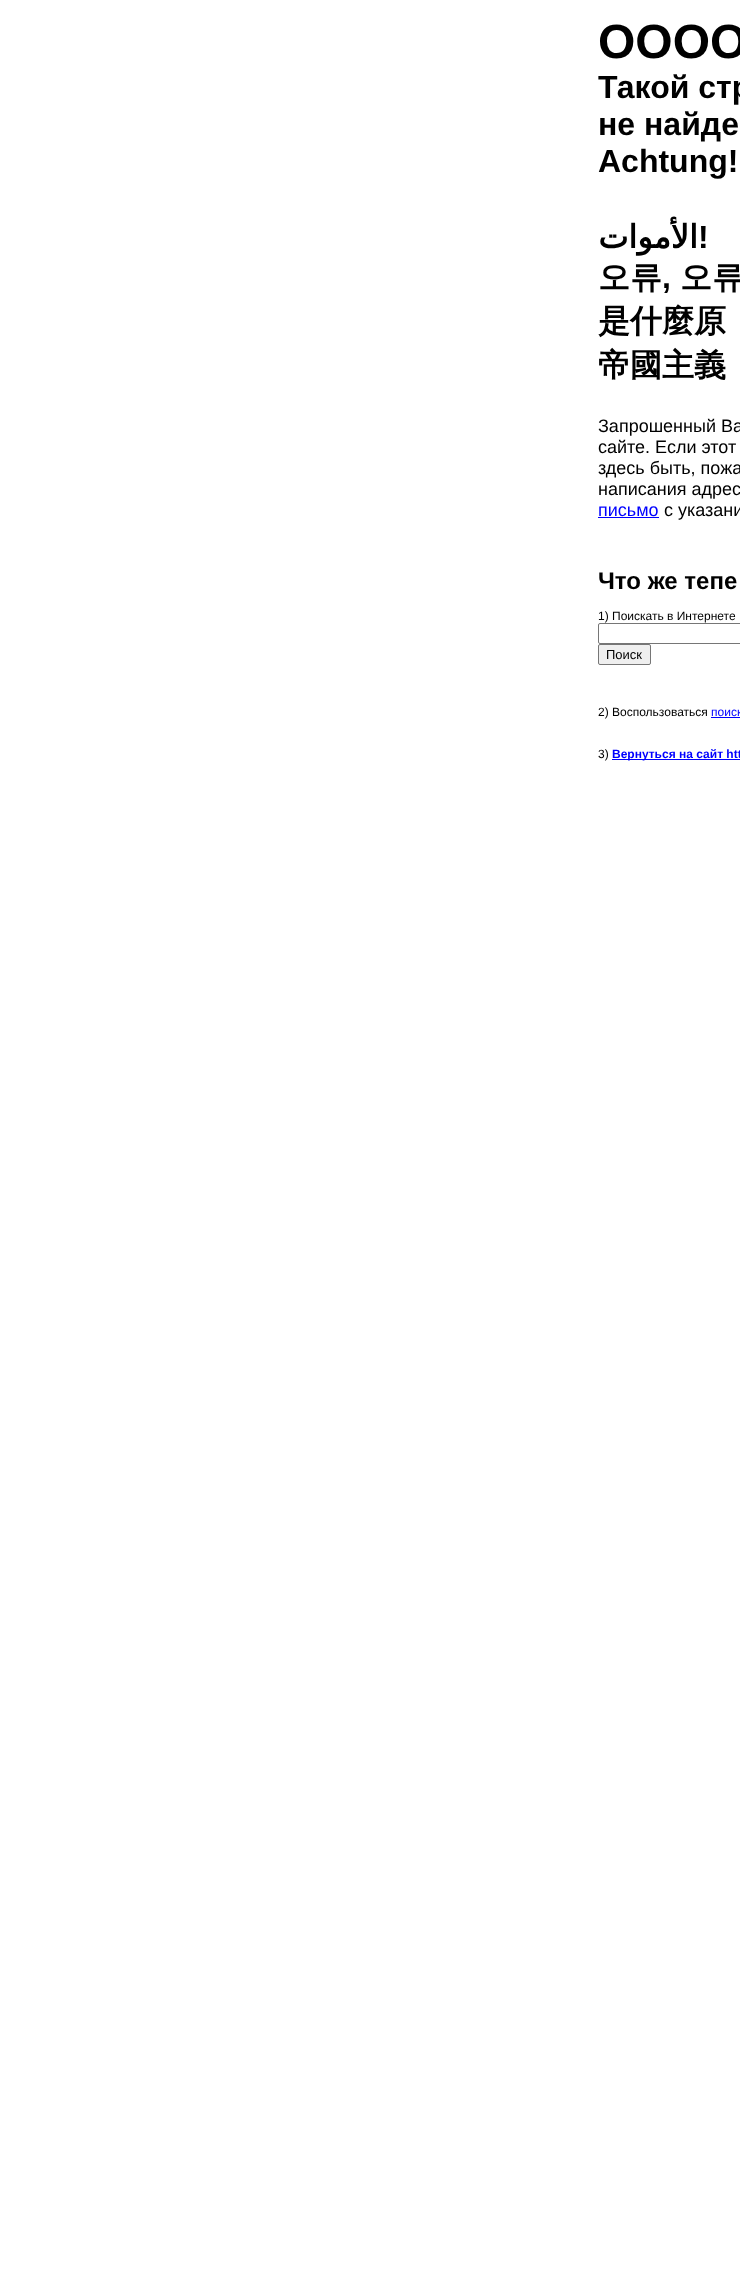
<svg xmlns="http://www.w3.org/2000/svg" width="740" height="2293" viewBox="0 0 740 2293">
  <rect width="100%" height="100%" fill="#fff"/>
  <path d="M598 517h61v1H598z" fill="#00f"/>
  <rect x="598.5" y="623.5" width="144" height="20" rx="1.5" fill="none" stroke="#767676"/>
  <rect x="598.5" y="644.5" width="52" height="20" rx="1.5" fill="#efefef" stroke="#767676"/>
  <path d="M711 717h29v1H711z" fill="#00f"/>
  <path d="M612 759h128v1H612z" fill="#00f"/>
  <text x="598" y="58" font-family="Liberation Sans" font-size="48" font-weight="bold" fill="#000">OOOO</text>
  <g font-family="Liberation Sans" font-size="32" font-weight="bold" fill="#000">
    <text x="598" y="98">Такой стр</text>
    <text x="598" y="135">не найде</text>
    <text x="598" y="172">Achtung!</text>
  </g>
  <text x="698" y="248" font-family="DejaVu Sans" font-size="32" font-weight="bold" direction="rtl" fill="#000">الأموات</text>
  <text x="698" y="248" font-family="Liberation Sans" font-size="32" font-weight="bold" fill="#000">!</text>
  <text x="598" y="288" font-family="WenQuanYi Zen Hei" font-size="32" font-weight="bold" fill="#000">오류</text>
  <text x="662" y="288" font-family="Liberation Sans" font-size="32" font-weight="bold" fill="#000">,</text>
  <g font-family="WenQuanYi Zen Hei" font-size="32" font-weight="bold" fill="#000">
    <text x="680" y="288">오류</text>
    <text x="598" y="332">是什麼原</text>
    <text x="598" y="376">帝國主義</text>
  </g>
  <g font-family="Liberation Sans" font-size="18" fill="#000">
    <text x="598" y="432">Запрошенный Ва</text>
    <text x="598" y="453">сайте. Если этот</text>
    <text x="598" y="474">здесь быть, пожа</text>
    <text x="598" y="495">написания адрес</text>
  </g>
  <text x="598" y="516" font-family="Liberation Sans" font-size="18" fill="#00f">письмо</text>
  <text x="664" y="516" font-family="Liberation Sans" font-size="18" fill="#000">с указани</text>
  <text x="598" y="589" font-family="Liberation Sans" font-size="24" font-weight="bold" fill="#000">Что же тепе</text>
  <text x="598" y="620" font-family="Liberation Sans" font-size="12" fill="#000">1) Поискать в Интернете</text>
  <text x="606" y="659" font-family="Liberation Sans" font-size="13" fill="#000">Поиск</text>
  <text x="598" y="716" font-family="Liberation Sans" font-size="12" fill="#000">2) Воспользоваться</text>
  <text x="711" y="716" font-family="Liberation Sans" font-size="12" fill="#00f">поиск</text>
  <text x="598" y="758" font-family="Liberation Sans" font-size="12" fill="#000">3)</text>
  <text x="612" y="758" font-family="Liberation Sans" font-size="12" font-weight="bold" fill="#00f">Вернуться на сайт htt</text>
</svg>
